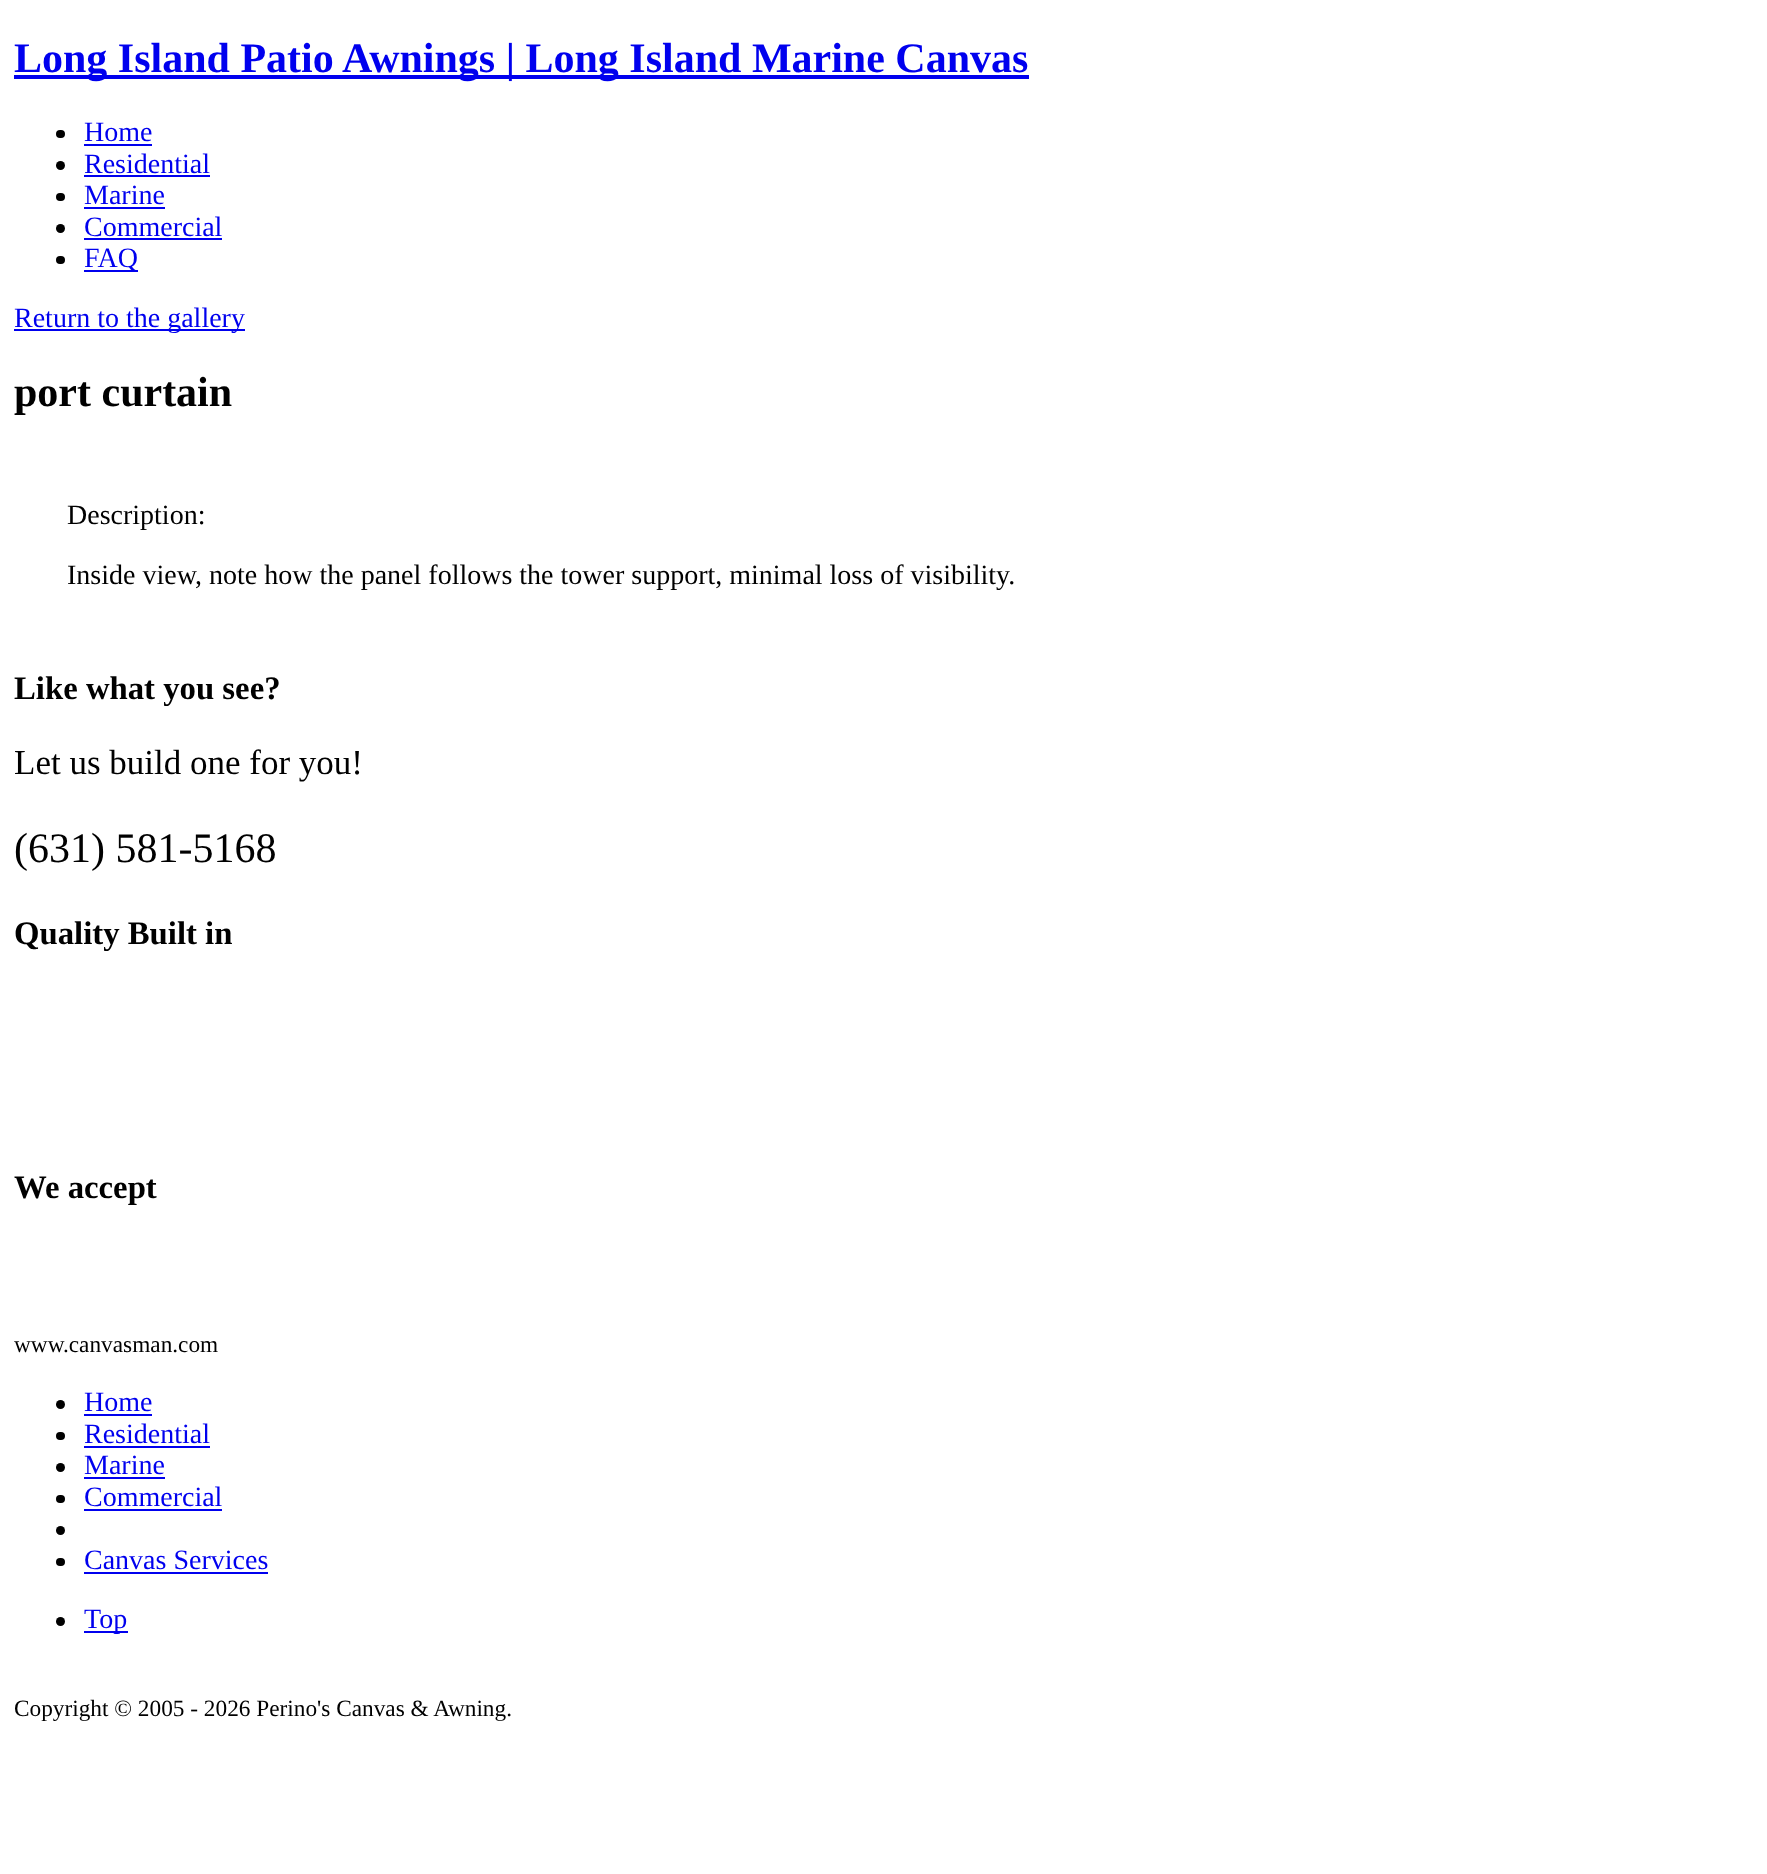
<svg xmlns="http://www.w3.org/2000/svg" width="1767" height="1874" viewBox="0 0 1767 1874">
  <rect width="100%" height="100%" fill="#fff"/>
  <path d="M14 75h1015v4H14z" fill="#00e"/>
  <rect x="56" y="130" width="9" height="8" rx="4" fill="#000"/>
  <path d="M84 144h68v2H84z" fill="#00e"/>
  <circle cx="60.5" cy="165.5" r="4.5" fill="#000"/>
  <path d="M84 175h126v2H84z" fill="#00e"/>
  <rect x="56" y="193" width="9" height="8" rx="4" fill="#000"/>
  <path d="M84 207h81v2H84z" fill="#00e"/>
  <circle cx="60.5" cy="228.5" r="4.5" fill="#000"/>
  <path d="M84 238h138v2H84z" fill="#00e"/>
  <rect x="56" y="256" width="9" height="8" rx="4" fill="#000"/>
  <path d="M84 270h54v2H84z" fill="#00e"/>
  <path d="M14 329h231v2H14z" fill="#00e"/>
  <circle cx="60.5" cy="1404.5" r="4.5" fill="#000"/>
  <path d="M84 1414h68v2H84z" fill="#00e"/>
  <rect x="56" y="1432" width="9" height="8" rx="4" fill="#000"/>
  <path d="M84 1446h126v2H84z" fill="#00e"/>
  <circle cx="60.5" cy="1467.5" r="4.5" fill="#000"/>
  <path d="M84 1477h81v2H84z" fill="#00e"/>
  <rect x="56" y="1495" width="9" height="8" rx="4" fill="#000"/>
  <path d="M84 1509h138v2H84z" fill="#00e"/>
  <circle cx="60.5" cy="1530.5" r="4.5" fill="#000"/>
  <rect x="56" y="1558" width="9" height="8" rx="4" fill="#000"/>
  <path d="M84 1572h184v2H84z" fill="#00e"/>
  <circle cx="60.5" cy="1621.5" r="4.5" fill="#000"/>
  <path d="M84 1631h44v2H84z" fill="#00e"/>
  <text x="14" y="72" font-family="Liberation Serif" font-size="42" font-weight="bold" fill="#00e">Long Island Patio Awnings | Long Island Marine Canvas</text>
  <g font-family="Liberation Serif" font-size="28" fill="#00e">
    <text x="84" y="141">Home</text>
    <text x="84" y="173">Residential</text>
    <text x="84" y="204">Marine</text>
    <text x="84" y="236">Commercial</text>
    <text x="84" y="267">FAQ</text>
    <text x="14" y="327">Return to the gallery</text>
  </g>
  <text x="14" y="406" font-family="Liberation Serif" font-size="42" font-weight="bold" fill="#000">port curtain</text>
  <g font-family="Liberation Serif" font-size="28" fill="#000">
    <text x="67" y="524">Description:</text>
    <text x="67" y="584">Inside view, note how the panel follows the tower support, minimal loss of visibility.</text>
  </g>
  <text x="14" y="699" font-family="Liberation Serif" font-size="32.75" font-weight="bold" fill="#000">Like what you see?</text>
  <text x="14" y="774" font-family="Liberation Serif" font-size="35" fill="#000">Let us build one for you!</text>
  <text x="14" y="862" font-family="Liberation Serif" font-size="42" fill="#000">(631) 581-5168</text>
  <g font-family="Liberation Serif" font-size="32.75" font-weight="bold" fill="#000">
    <text x="14" y="944">Quality Built in</text>
    <text x="14" y="1198">We accept</text>
  </g>
  <text x="14" y="1352" font-family="Liberation Serif" font-size="23.3" fill="#000">www.canvasman.com</text>
  <g font-family="Liberation Serif" font-size="28" fill="#00e">
    <text x="84" y="1411">Home</text>
    <text x="84" y="1443">Residential</text>
    <text x="84" y="1474">Marine</text>
    <text x="84" y="1506">Commercial</text>
    <text x="84" y="1569">Canvas Services</text>
    <text x="84" y="1628">Top</text>
  </g>
  <text x="14" y="1716" font-family="Liberation Serif" font-size="23.3" fill="#000">Copyright © 2005 - 2026 Perino's Canvas &amp; Awning.</text>
</svg>
